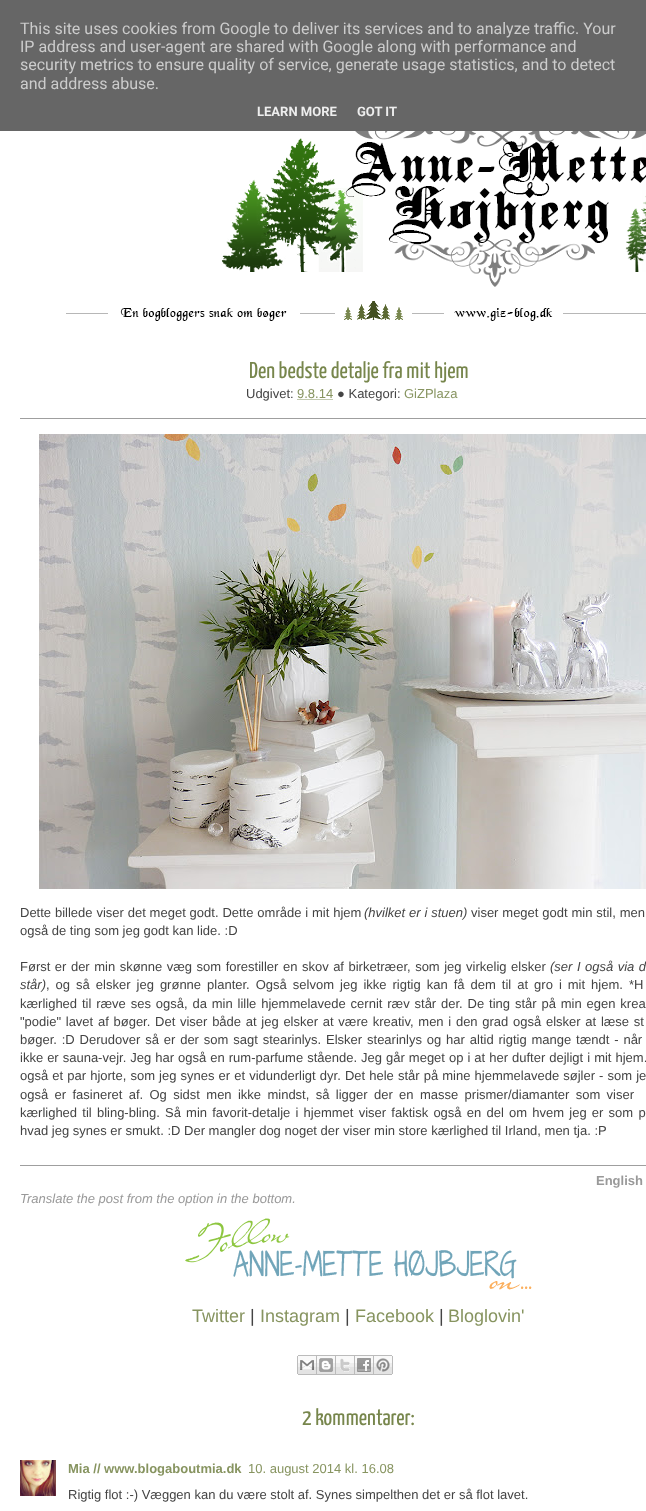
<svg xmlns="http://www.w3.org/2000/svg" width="646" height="1511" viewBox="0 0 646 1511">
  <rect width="100%" height="100%" fill="#fff"/>
  <path d="M0 0h646v131H0z" fill="#666"/>
  <image x="66" y="131" width="580" height="190" href="img/1.png"/>
  <path d="M297.5 399.5H333.5" fill="none" stroke="#879460" stroke-dasharray="1 1"/>
  <path d="M20 418h626v1H20z" fill="#9f9f9f"/>
  <image x="39" y="434" width="607" height="455" href="img/2.png"/>
  <path d="M20 1165h626v1H20z" fill="#9f9f9f"/>
  <image x="185" y="1218" width="347" height="72" href="img/3.png"/>
  <image x="297" y="1355" width="20" height="20" href="img/4.png"/>
  <image x="317" y="1355" width="19" height="20" href="img/5.png"/>
  <image x="336" y="1355" width="19" height="20" href="img/6.png"/>
  <image x="355" y="1355" width="19" height="20" href="img/7.png"/>
  <image x="374" y="1355" width="19" height="20" href="img/8.png"/>
  <image x="20" y="1460" width="36" height="36" href="img/9.png"/>
  <g font-family="Roboto" font-size="16" fill="#ccc">
    <text x="20" y="34">This site uses cookies from Google to deliver its services and to analyze traffic. Your</text>
    <text x="20" y="52">IP address and user-agent are shared with Google along with performance and</text>
    <text x="20" y="70">security metrics to ensure quality of service, generate usage statistics, and to detect</text>
    <text x="20" y="89">and address abuse.</text>
  </g>
  <g font-family="Roboto" font-size="13" font-weight="bold" fill="#eee">
    <text x="257" y="116">LEARN MORE</text>
    <text x="357" y="116">GOT IT</text>
  </g>
  <text x="249" y="378" font-family="Yanone Kaffeesatz" font-size="23" font-weight="200" fill="#77864c">Den bedste detalje fra mit hjem</text>
  <text x="246" y="398" font-family="Liberation Sans" font-size="13" fill="#444">Udgivet:</text>
  <text x="297" y="398" font-family="Liberation Sans" font-size="13" fill="#879460">9.8.14</text>
  <text x="337" y="398" font-family="Liberation Sans" font-size="13" fill="#444">● Kategori:</text>
  <text x="404" y="398" font-family="Liberation Sans" font-size="13" fill="#879460">GiZPlaza</text>
  <text x="20" y="917" word-spacing="0.25" font-family="Liberation Sans" font-size="13" fill="#444">Dette billede viser det meget godt. Dette område i mit hjem</text>
  <text x="364" y="917" word-spacing="0.25" font-family="Liberation Sans" font-size="13" font-style="italic" fill="#444">(hvilket er i stuen)</text>
  <g font-family="Liberation Sans" font-size="13" fill="#444">
    <text x="471" y="917" word-spacing="0.25">viser meget godt min stil, men</text>
    <text x="20" y="935">også de ting som jeg godt kan lide. :D</text>
    <text x="20" y="971" word-spacing="0.9">Først er der min skønne væg som forestiller en skov af birketræer, som jeg virkelig elsker</text>
  </g>
  <g font-family="Liberation Sans" font-size="13" font-style="italic" fill="#444">
    <text x="550" y="971" word-spacing="0.9">(ser I også via d</text>
    <text x="20" y="989">står)</text>
  </g>
  <g font-family="Liberation Sans" font-size="13" fill="#444">
    <text x="46" y="989" word-spacing="2.4">, og så elsker jeg grønne planter. Også selvom jeg ikke rigtig kan få dem til at gro i mit hjem. *H</text>
    <text x="20" y="1008" word-spacing="1.25">kærlighed til ræve ses også, da min lille hjemmelavede cernit ræv står der. De ting står på min egen krea</text>
    <text x="20" y="1026" word-spacing="1.1">"podie" lavet af bøger. Det viser både at jeg elsker at være kreativ, men i den grad også elsker at læse st</text>
    <text x="20" y="1044" word-spacing="1.25">bøger. :D Derudover så er der som sagt stearinlys. Elsker stearinlys og har altid rigtig mange tændt - når</text>
    <text x="20" y="1062" word-spacing="0.4">ikke er sauna-vejr. Jeg har også en rum-parfume stående. Jeg går meget op i at her dufter dejligt i mit hjem.</text>
    <text x="20" y="1080" word-spacing="0.5">også et par hjorte, som jeg synes er et vidunderligt dyr. Det hele står på mine hjemmelavede søjler - som je</text>
    <text x="20" y="1099" word-spacing="2.75">også er fasineret af. Og sidst men ikke mindst, så ligger der en masse prismer/diamanter som viser</text>
    <text x="20" y="1117" word-spacing="1.6">kærlighed til bling-bling. Så min favorit-detalje i hjemmet viser faktisk også en del om hvem jeg er som p</text>
    <text x="20" y="1135">hvad jeg synes er smukt. :D Der mangler dog noget der viser min store kærlighed til Irland, men tja. :P</text>
  </g>
  <text x="596" y="1185" font-family="Liberation Sans" font-size="13" font-weight="bold" fill="#999">English</text>
  <text x="20" y="1203" font-family="Liberation Sans" font-size="13" font-style="italic" fill="#999">Translate the post from the option in the bottom.</text>
  <text x="192" y="1322" font-family="Liberation Sans" font-size="18" fill="#879460">Twitter</text>
  <text x="250" y="1322" font-family="Liberation Sans" font-size="18" fill="#444">|</text>
  <text x="260" y="1322" font-family="Liberation Sans" font-size="18" fill="#879460">Instagram</text>
  <text x="345" y="1322" font-family="Liberation Sans" font-size="18" fill="#444">|</text>
  <text x="355" y="1322" font-family="Liberation Sans" font-size="18" fill="#879460">Facebook</text>
  <text x="439" y="1322" font-family="Liberation Sans" font-size="18" fill="#444">|</text>
  <text x="448" y="1322" font-family="Liberation Sans" font-size="18" fill="#879460">Bloglovin'</text>
  <text x="302" y="1425" font-family="Yanone Kaffeesatz" font-size="23" font-weight="200" fill="#77864c">2 kommentarer:</text>
  <text x="68" y="1473" font-family="Liberation Sans" font-size="13" font-weight="bold" fill="#879460">Mia // www.blogaboutmia.dk</text>
  <text x="248" y="1473" font-family="Liberation Sans" font-size="13" fill="#879460">10. august 2014 kl. 16.08</text>
  <text x="68" y="1499" font-family="Liberation Sans" font-size="13" fill="#444">Rigtig flot :-) Væggen kan du være stolt af. Synes simpelthen det er så flot lavet.</text>
</svg>
